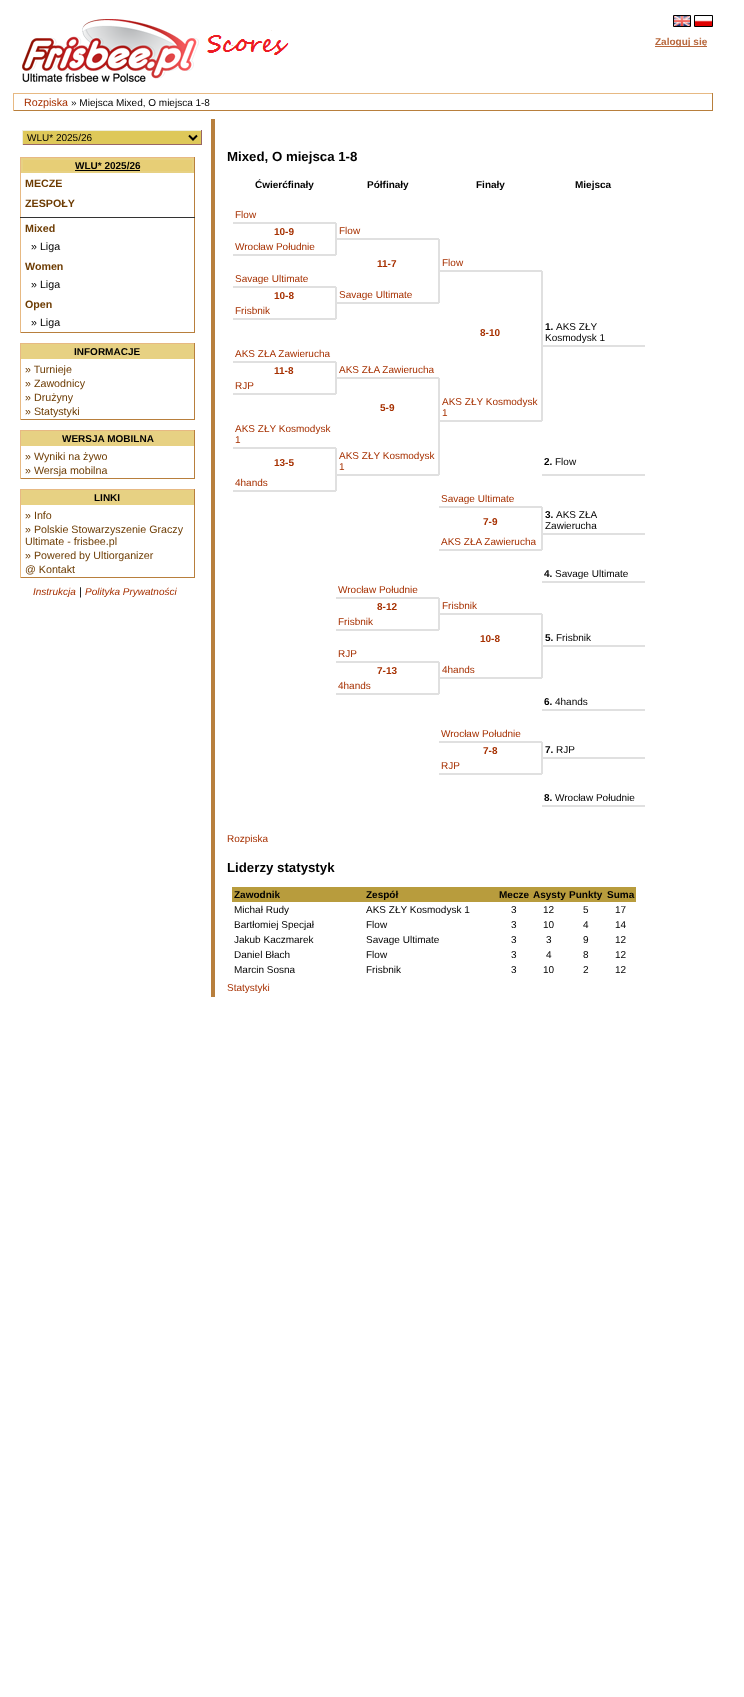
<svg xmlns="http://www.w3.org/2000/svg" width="744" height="1697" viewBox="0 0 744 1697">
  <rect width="100%" height="100%" fill="#fff"/>
  <image x="22" y="19" width="267" height="63" href="img/1.png"/>
  <path d="M673.5 15.5h17v11H673.5z" fill="none" stroke="#000"/>
  <path d="M694.5 15.5h18v11H694.5z" fill="none" stroke="#000"/>
  <image x="674" y="16" width="16" height="10" href="img/2.png"/>
  <image x="695" y="16" width="17" height="10" href="img/3.png"/>
  <path d="M655 46h52v1H655z" fill="#b8683d"/>
  <path d="M13 93h700v1H13z" fill="#e7b983"/>
  <path d="M712 93h1v18H712z" fill="#b87f3d"/>
  <path d="M13 110h700v1H13z" fill="#b87f3d"/>
  <path d="M13 93h1v18H13z" fill="#e7b983"/>
  <path d="M23 131h178v13H23z" fill="#dec859"/>
  <path d="M22 130h180v1H22z" fill="#eed"/>
  <path d="M201 130h1v15H201z" fill="#966"/>
  <path d="M22 144h180v1H22z" fill="#966"/>
  <path d="M22 130h1v15H22z" fill="#eed"/>
  <path d="M189 135.5L193 139.5L197 135.5" fill="none" stroke="#000" stroke-width="2"/>
  <path d="M20 157h175v1H20z" fill="#e7b983"/>
  <path d="M194 157h1v176H194z" fill="#b87f3d"/>
  <path d="M20 332h175v1H20z" fill="#b87f3d"/>
  <path d="M20 157h1v176H20z" fill="#e7b983"/>
  <path d="M21 158h173v15H21z" fill="#e7d183"/>
  <path d="M23 160h169v11H23z" fill="#e7ce76"/>
  <path d="M75 170h65v1H75z" fill="#000"/>
  <path d="M20 217h175v1H20z" fill="#333"/>
  <path d="M20 343h175v1H20z" fill="#e7b983"/>
  <path d="M194 343h1v77H194z" fill="#b87f3d"/>
  <path d="M20 419h175v1H20z" fill="#b87f3d"/>
  <path d="M20 343h1v77H20z" fill="#e7b983"/>
  <path d="M21 344h173v15H21z" fill="#e7d183"/>
  <path d="M20 430h175v1H20z" fill="#e7b983"/>
  <path d="M194 430h1v49H194z" fill="#b87f3d"/>
  <path d="M20 478h175v1H20z" fill="#b87f3d"/>
  <path d="M20 430h1v49H20z" fill="#e7b983"/>
  <path d="M21 431h173v15H21z" fill="#e7d183"/>
  <path d="M20 489h175v1H20z" fill="#e7b983"/>
  <path d="M194 489h1v89H194z" fill="#b87f3d"/>
  <path d="M20 577h175v1H20z" fill="#b87f3d"/>
  <path d="M20 489h1v89H20z" fill="#e7b983"/>
  <path d="M21 490h173v15H21z" fill="#e7d183"/>
  <path d="M211 119h4v878H211z" fill="#b87f3d"/>
  <path d="M233 222h103v2H233z" fill="#e0e0e0"/>
  <path d="M335 223h1v32H335z" fill="#e0e0e0"/>
  <path d="M336 238h103v2H336z" fill="#e0e0e0"/>
  <path d="M336 223h1v32H336z" fill="#e0e0e0"/>
  <path d="M233 254h103v2H233z" fill="#e0e0e0"/>
  <path d="M438 239h2v16H438z" fill="#e0e0e0"/>
  <path d="M438 255h1v48H438z" fill="#e0e0e0"/>
  <path d="M439 270h103v2H439z" fill="#e0e0e0"/>
  <path d="M439 255h1v48H439z" fill="#e0e0e0"/>
  <path d="M233 286h103v2H233z" fill="#e0e0e0"/>
  <path d="M541 271h2v16H541z" fill="#e0e0e0"/>
  <path d="M335 287h1v32H335z" fill="#e0e0e0"/>
  <path d="M336 302h103v2H336z" fill="#e0e0e0"/>
  <path d="M336 287h1v32H336z" fill="#e0e0e0"/>
  <path d="M541 287h2v16H541z" fill="#e0e0e0"/>
  <path d="M233 318h103v2H233z" fill="#e0e0e0"/>
  <path d="M541 303h2v16H541z" fill="#e0e0e0"/>
  <path d="M541 319h1v102H541z" fill="#e0e0e0"/>
  <path d="M542 345h103v2H542z" fill="#e0e0e0"/>
  <path d="M542 319h1v102H542z" fill="#e0e0e0"/>
  <path d="M233 361h103v2H233z" fill="#e0e0e0"/>
  <path d="M335 362h1v32H335z" fill="#e0e0e0"/>
  <path d="M336 377h103v2H336z" fill="#e0e0e0"/>
  <path d="M336 362h1v32H336z" fill="#e0e0e0"/>
  <path d="M233 393h103v2H233z" fill="#e0e0e0"/>
  <path d="M438 378h2v16H438z" fill="#e0e0e0"/>
  <path d="M438 394h1v81H438z" fill="#e0e0e0"/>
  <path d="M439 420h103v2H439z" fill="#e0e0e0"/>
  <path d="M439 394h1v81H439z" fill="#e0e0e0"/>
  <path d="M233 447h103v2H233z" fill="#e0e0e0"/>
  <path d="M335 448h1v43H335z" fill="#e0e0e0"/>
  <path d="M336 474h103v2H336z" fill="#e0e0e0"/>
  <path d="M336 448h1v43H336z" fill="#e0e0e0"/>
  <path d="M542 474h103v2H542z" fill="#e0e0e0"/>
  <path d="M233 490h103v2H233z" fill="#e0e0e0"/>
  <path d="M439 506h103v2H439z" fill="#e0e0e0"/>
  <path d="M541 507h1v43H541z" fill="#e0e0e0"/>
  <path d="M542 533h103v2H542z" fill="#e0e0e0"/>
  <path d="M542 507h1v43H542z" fill="#e0e0e0"/>
  <path d="M439 549h103v2H439z" fill="#e0e0e0"/>
  <path d="M542 581h103v2H542z" fill="#e0e0e0"/>
  <path d="M336 597h103v2H336z" fill="#e0e0e0"/>
  <path d="M438 598h1v32H438z" fill="#e0e0e0"/>
  <path d="M439 613h103v2H439z" fill="#e0e0e0"/>
  <path d="M439 598h1v32H439z" fill="#e0e0e0"/>
  <path d="M336 629h103v2H336z" fill="#e0e0e0"/>
  <path d="M541 614h2v16H541z" fill="#e0e0e0"/>
  <path d="M541 630h1v48H541z" fill="#e0e0e0"/>
  <path d="M542 645h103v2H542z" fill="#e0e0e0"/>
  <path d="M542 630h1v48H542z" fill="#e0e0e0"/>
  <path d="M336 661h103v2H336z" fill="#e0e0e0"/>
  <path d="M438 662h1v32H438z" fill="#e0e0e0"/>
  <path d="M439 677h103v2H439z" fill="#e0e0e0"/>
  <path d="M439 662h1v32H439z" fill="#e0e0e0"/>
  <path d="M336 693h103v2H336z" fill="#e0e0e0"/>
  <path d="M542 709h103v2H542z" fill="#e0e0e0"/>
  <path d="M439 741h103v2H439z" fill="#e0e0e0"/>
  <path d="M541 742h1v32H541z" fill="#e0e0e0"/>
  <path d="M542 757h103v2H542z" fill="#e0e0e0"/>
  <path d="M542 742h1v32H542z" fill="#e0e0e0"/>
  <path d="M439 773h103v2H439z" fill="#e0e0e0"/>
  <path d="M542 805h103v2H542z" fill="#e0e0e0"/>
  <path d="M232 887h404v15H232z" fill="#b89c3d"/>
  <text x="655" y="45" font-family="Liberation Sans" font-size="10" font-weight="bold" fill="#b8683d">Zaloguj się</text>
  <text x="24" y="106" font-family="Liberation Sans" font-size="10.7" fill="#a63000">Rozpiska</text>
  <g font-family="Liberation Sans" font-size="10" fill="#000">
    <text x="71" y="106">» Miejsca Mixed, O miejsca 1-8</text>
    <text x="27" y="141">WLU* 2025/26</text>
  </g>
  <text x="75" y="169" font-family="Liberation Sans" font-size="10" font-weight="bold" fill="#000">WLU* 2025/26</text>
  <g font-family="Liberation Sans" font-size="10.7" font-weight="bold" fill="#6d3c03">
    <text x="25" y="187">MECZE</text>
    <text x="25" y="207">ZESPOŁY</text>
    <text x="25" y="232">Mixed</text>
  </g>
  <text x="31" y="250" font-family="Liberation Sans" font-size="10.7" fill="#000">» Liga</text>
  <text x="25" y="270" font-family="Liberation Sans" font-size="10.7" font-weight="bold" fill="#6d3c03">Women</text>
  <text x="31" y="288" font-family="Liberation Sans" font-size="10.7" fill="#000">» Liga</text>
  <text x="25" y="308" font-family="Liberation Sans" font-size="10.7" font-weight="bold" fill="#6d3c03">Open</text>
  <text x="31" y="326" font-family="Liberation Sans" font-size="10.7" fill="#000">» Liga</text>
  <text x="74" y="355" font-family="Liberation Sans" font-size="10" font-weight="bold" fill="#000">INFORMACJE</text>
  <g font-family="Liberation Sans" font-size="10.7" fill="#6d3c03">
    <text x="25" y="373">» Turnieje</text>
    <text x="25" y="387">» Zawodnicy</text>
    <text x="25" y="401">» Drużyny</text>
    <text x="25" y="415">» Statystyki</text>
  </g>
  <text x="62" y="442" font-family="Liberation Sans" font-size="10" font-weight="bold" fill="#000">WERSJA MOBILNA</text>
  <g font-family="Liberation Sans" font-size="10.7" fill="#6d3c03">
    <text x="25" y="460">» Wyniki na żywo</text>
    <text x="25" y="474">» Wersja mobilna</text>
  </g>
  <text x="94" y="501" font-family="Liberation Sans" font-size="10" font-weight="bold" fill="#000">LINKI</text>
  <g font-family="Liberation Sans" font-size="10.7" fill="#6d3c03">
    <text x="25" y="519">» Info</text>
    <text x="25" y="533">» Polskie Stowarzyszenie Graczy</text>
    <text x="25" y="545">Ultimate - frisbee.pl</text>
    <text x="25" y="559">» Powered by Ultiorganizer</text>
    <text x="25" y="573">@ Kontakt</text>
  </g>
  <text x="33" y="595" font-family="Liberation Sans" font-size="10" font-style="italic" fill="#a63000">Instrukcja</text>
  <text x="79" y="595" font-family="Liberation Sans" font-size="10.7" font-style="italic" fill="#000">|</text>
  <text x="85" y="595" font-family="Liberation Sans" font-size="10" font-style="italic" fill="#a63000">Polityka Prywatności</text>
  <text x="227" y="161" font-family="Liberation Sans" font-size="13.25" font-weight="bold" fill="#000">Mixed, O miejsca 1-8</text>
  <g font-family="Liberation Sans" font-size="10" font-weight="bold" fill="#000">
    <text x="255" y="188">Ćwierćfinały</text>
    <text x="367" y="188">Półfinały</text>
    <text x="476" y="188">Finały</text>
    <text x="575" y="188">Miejsca</text>
  </g>
  <text x="235" y="218" font-family="Liberation Sans" font-size="10" fill="#a63000">Flow</text>
  <text x="274" y="235" font-family="Liberation Sans" font-size="10" font-weight="bold" fill="#a63000">10-9</text>
  <g font-family="Liberation Sans" font-size="10" fill="#a63000">
    <text x="339" y="234">Flow</text>
    <text x="235" y="250">Wrocław Południe</text>
  </g>
  <text x="377" y="267" font-family="Liberation Sans" font-size="10" font-weight="bold" fill="#a63000">11-7</text>
  <g font-family="Liberation Sans" font-size="10" fill="#a63000">
    <text x="442" y="266">Flow</text>
    <text x="235" y="282">Savage Ultimate</text>
  </g>
  <text x="274" y="299" font-family="Liberation Sans" font-size="10" font-weight="bold" fill="#a63000">10-8</text>
  <g font-family="Liberation Sans" font-size="10" fill="#a63000">
    <text x="339" y="298">Savage Ultimate</text>
    <text x="235" y="314">Frisbnik</text>
  </g>
  <text x="480" y="336" font-family="Liberation Sans" font-size="10" font-weight="bold" fill="#a63000">8-10</text>
  <text x="545" y="330" font-family="Liberation Sans" font-size="10" font-weight="bold" fill="#000">1.</text>
  <g font-family="Liberation Sans" font-size="10" fill="#000">
    <text x="556" y="330">AKS ZŁY</text>
    <text x="545" y="341">Kosmodysk 1</text>
  </g>
  <text x="235" y="357" font-family="Liberation Sans" font-size="10" fill="#a63000">AKS ZŁA Zawierucha</text>
  <text x="274" y="374" font-family="Liberation Sans" font-size="10" font-weight="bold" fill="#a63000">11-8</text>
  <g font-family="Liberation Sans" font-size="10" fill="#a63000">
    <text x="339" y="373">AKS ZŁA Zawierucha</text>
    <text x="235" y="389">RJP</text>
  </g>
  <text x="380" y="411" font-family="Liberation Sans" font-size="10" font-weight="bold" fill="#a63000">5-9</text>
  <g font-family="Liberation Sans" font-size="10" fill="#a63000">
    <text x="442" y="405">AKS ZŁY Kosmodysk</text>
    <text x="442" y="416">1</text>
    <text x="235" y="432">AKS ZŁY Kosmodysk</text>
    <text x="235" y="443">1</text>
  </g>
  <text x="274" y="466" font-family="Liberation Sans" font-size="10" font-weight="bold" fill="#a63000">13-5</text>
  <g font-family="Liberation Sans" font-size="10" fill="#a63000">
    <text x="339" y="459">AKS ZŁY Kosmodysk</text>
    <text x="339" y="470">1</text>
  </g>
  <text x="544" y="465" font-family="Liberation Sans" font-size="10" font-weight="bold" fill="#000">2.</text>
  <text x="555" y="465" font-family="Liberation Sans" font-size="10" fill="#000">Flow</text>
  <g font-family="Liberation Sans" font-size="10" fill="#a63000">
    <text x="235" y="486">4hands</text>
    <text x="441" y="502">Savage Ultimate</text>
  </g>
  <text x="483" y="525" font-family="Liberation Sans" font-size="10" font-weight="bold" fill="#a63000">7-9</text>
  <text x="545" y="518" font-family="Liberation Sans" font-size="10" font-weight="bold" fill="#000">3.</text>
  <g font-family="Liberation Sans" font-size="10" fill="#000">
    <text x="556" y="518">AKS ZŁA</text>
    <text x="545" y="529">Zawierucha</text>
  </g>
  <text x="441" y="545" font-family="Liberation Sans" font-size="10" fill="#a63000">AKS ZŁA Zawierucha</text>
  <text x="544" y="577" font-family="Liberation Sans" font-size="10" font-weight="bold" fill="#000">4.</text>
  <text x="555" y="577" font-family="Liberation Sans" font-size="10" fill="#000">Savage Ultimate</text>
  <text x="338" y="593" font-family="Liberation Sans" font-size="10" fill="#a63000">Wrocław Południe</text>
  <text x="377" y="610" font-family="Liberation Sans" font-size="10" font-weight="bold" fill="#a63000">8-12</text>
  <g font-family="Liberation Sans" font-size="10" fill="#a63000">
    <text x="442" y="609">Frisbnik</text>
    <text x="338" y="625">Frisbnik</text>
  </g>
  <text x="480" y="642" font-family="Liberation Sans" font-size="10" font-weight="bold" fill="#a63000">10-8</text>
  <text x="545" y="641" font-family="Liberation Sans" font-size="10" font-weight="bold" fill="#000">5.</text>
  <text x="556" y="641" font-family="Liberation Sans" font-size="10" fill="#000">Frisbnik</text>
  <text x="338" y="657" font-family="Liberation Sans" font-size="10" fill="#a63000">RJP</text>
  <text x="377" y="674" font-family="Liberation Sans" font-size="10" font-weight="bold" fill="#a63000">7-13</text>
  <g font-family="Liberation Sans" font-size="10" fill="#a63000">
    <text x="442" y="673">4hands</text>
    <text x="338" y="689">4hands</text>
  </g>
  <text x="544" y="705" font-family="Liberation Sans" font-size="10" font-weight="bold" fill="#000">6.</text>
  <text x="555" y="705" font-family="Liberation Sans" font-size="10" fill="#000">4hands</text>
  <text x="441" y="737" font-family="Liberation Sans" font-size="10" fill="#a63000">Wrocław Południe</text>
  <text x="483" y="754" font-family="Liberation Sans" font-size="10" font-weight="bold" fill="#a63000">7-8</text>
  <text x="545" y="753" font-family="Liberation Sans" font-size="10" font-weight="bold" fill="#000">7.</text>
  <text x="556" y="753" font-family="Liberation Sans" font-size="10" fill="#000">RJP</text>
  <text x="441" y="769" font-family="Liberation Sans" font-size="10" fill="#a63000">RJP</text>
  <text x="544" y="801" font-family="Liberation Sans" font-size="10" font-weight="bold" fill="#000">8.</text>
  <text x="555" y="801" font-family="Liberation Sans" font-size="10" fill="#000">Wrocław Południe</text>
  <text x="227" y="842" font-family="Liberation Sans" font-size="10" fill="#a63000">Rozpiska</text>
  <text x="227" y="872" font-family="Liberation Sans" font-size="13.25" font-weight="bold" fill="#000">Liderzy statystyk</text>
  <g font-family="Liberation Sans" font-size="10" font-weight="bold" fill="#000">
    <text x="234" y="898">Zawodnik</text>
    <text x="366" y="898">Zespół</text>
    <text x="499" y="898">Mecze</text>
    <text x="533" y="898">Asysty</text>
    <text x="569" y="898">Punkty</text>
    <text x="607" y="898">Suma</text>
  </g>
  <g font-family="Liberation Sans" font-size="10" fill="#000">
    <text x="234" y="913">Michał Rudy</text>
    <text x="366" y="913">AKS ZŁY Kosmodysk 1</text>
    <text x="511" y="913">3</text>
    <text x="543" y="913">12</text>
    <text x="583" y="913">5</text>
    <text x="615" y="913">17</text>
    <text x="234" y="928">Bartłomiej Specjał</text>
    <text x="366" y="928">Flow</text>
    <text x="511" y="928">3</text>
    <text x="543" y="928">10</text>
    <text x="583" y="928">4</text>
    <text x="615" y="928">14</text>
    <text x="234" y="943">Jakub Kaczmarek</text>
    <text x="366" y="943">Savage Ultimate</text>
    <text x="511" y="943">3</text>
    <text x="546" y="943">3</text>
    <text x="583" y="943">9</text>
    <text x="615" y="943">12</text>
    <text x="234" y="958">Daniel Błach</text>
    <text x="366" y="958">Flow</text>
    <text x="511" y="958">3</text>
    <text x="546" y="958">4</text>
    <text x="583" y="958">8</text>
    <text x="615" y="958">12</text>
    <text x="234" y="973">Marcin Sosna</text>
    <text x="366" y="973">Frisbnik</text>
    <text x="511" y="973">3</text>
    <text x="543" y="973">10</text>
    <text x="583" y="973">2</text>
    <text x="615" y="973">12</text>
  </g>
  <text x="227" y="991" font-family="Liberation Sans" font-size="10" fill="#a63000">Statystyki</text>
</svg>
